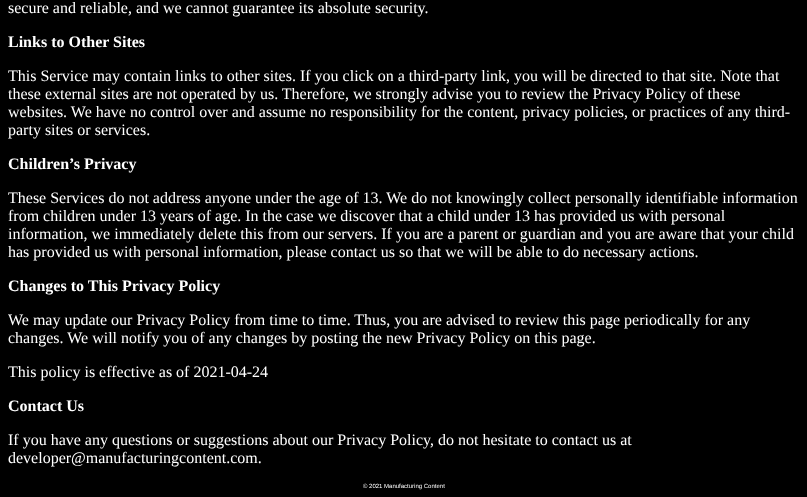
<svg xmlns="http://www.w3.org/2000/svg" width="807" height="497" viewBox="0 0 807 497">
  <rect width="100%" height="100%" fill="#000"/>
  <text x="8" y="13" font-family="Liberation Serif" font-size="16" fill="#fff">secure and reliable, and we cannot guarantee its absolute security.</text>
  <text x="8" y="47" font-family="Liberation Serif" font-size="16" font-weight="bold" fill="#fff">Links to Other Sites</text>
  <g font-family="Liberation Serif" font-size="16" fill="#fff">
    <text x="8" y="81">This Service may contain links to other sites. If you click on a third-party link, you will be directed to that site. Note that</text>
    <text x="8" y="99">these external sites are not operated by us. Therefore, we strongly advise you to review the Privacy Policy of these</text>
    <text x="8" y="117">websites. We have no control over and assume no responsibility for the content, privacy policies, or practices of any third-</text>
    <text x="8" y="135">party sites or services.</text>
  </g>
  <text x="8" y="169" font-family="Liberation Serif" font-size="16" font-weight="bold" fill="#fff">Children’s Privacy</text>
  <g font-family="Liberation Serif" font-size="16" fill="#fff">
    <text x="8" y="203">These Services do not address anyone under the age of 13. We do not knowingly collect personally identifiable information</text>
    <text x="8" y="221">from children under 13 years of age. In the case we discover that a child under 13 has provided us with personal</text>
    <text x="8" y="239">information, we immediately delete this from our servers. If you are a parent or guardian and you are aware that your child</text>
    <text x="8" y="257">has provided us with personal information, please contact us so that we will be able to do necessary actions.</text>
  </g>
  <text x="8" y="291" font-family="Liberation Serif" font-size="16" font-weight="bold" fill="#fff">Changes to This Privacy Policy</text>
  <g font-family="Liberation Serif" font-size="16" fill="#fff">
    <text x="8" y="325">We may update our Privacy Policy from time to time. Thus, you are advised to review this page periodically for any</text>
    <text x="8" y="343">changes. We will notify you of any changes by posting the new Privacy Policy on this page.</text>
    <text x="8" y="377">This policy is effective as of 2021-04-24</text>
  </g>
  <text x="8" y="411" font-family="Liberation Serif" font-size="16" font-weight="bold" fill="#fff">Contact Us</text>
  <g font-family="Liberation Serif" font-size="16" fill="#fff">
    <text x="8" y="445">If you have any questions or suggestions about our Privacy Policy, do not hesitate to contact us at</text>
    <text x="8" y="463">developer@manufacturingcontent.com.</text>
  </g>
  <text x="363" y="488" font-family="Liberation Sans" font-size="6" fill="#fff">© 2021 Manufacturing Content</text>
</svg>
